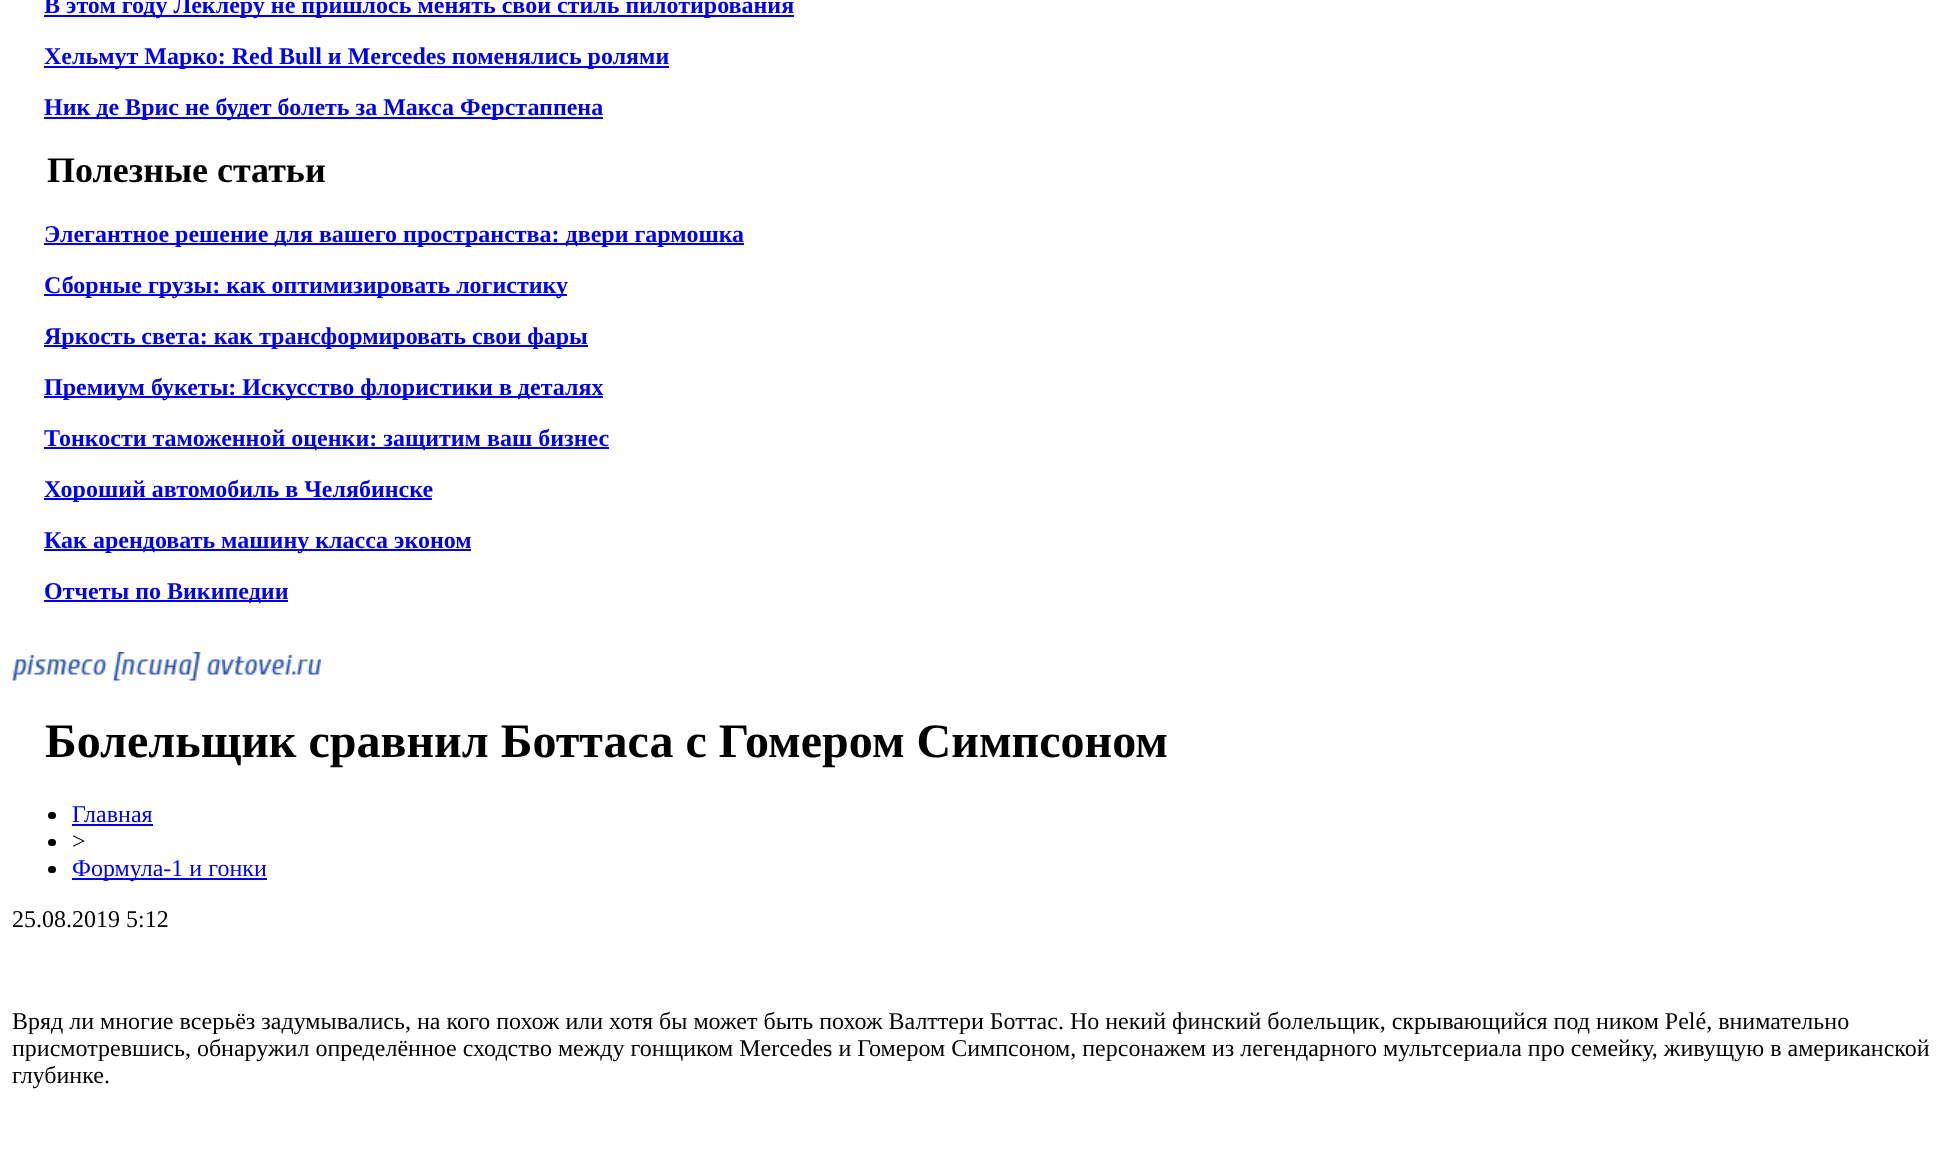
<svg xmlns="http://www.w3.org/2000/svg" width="1948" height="1161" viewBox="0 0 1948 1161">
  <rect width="100%" height="100%" fill="#fff"/>
  <path d="M44 15h750v2H44z" fill="#00e"/>
  <path d="M44 66h625v2H44z" fill="#00e"/>
  <path d="M44 117h559v2H44z" fill="#00e"/>
  <path d="M44 243h700v2H44z" fill="#00e"/>
  <path d="M44 294h523v2H44z" fill="#00e"/>
  <path d="M44 345h544v2H44z" fill="#00e"/>
  <path d="M44 396h559v2H44z" fill="#00e"/>
  <path d="M44 447h565v2H44z" fill="#00e"/>
  <path d="M44 498h388v2H44z" fill="#00e"/>
  <path d="M44 549h427v2H44z" fill="#00e"/>
  <path d="M44 600h244v2H44z" fill="#00e"/>
  <image x="12" y="652" width="309" height="29" href="img/1.png"/>
  <rect x="48" y="812" width="8" height="7" rx="3.5" fill="#000"/>
  <path d="M72 824h81v2H72z" fill="#00e"/>
  <rect x="48" y="839" width="8" height="7" rx="3.5" fill="#000"/>
  <rect x="48" y="866" width="8" height="7" rx="3.5" fill="#000"/>
  <path d="M72 878h195v2H72z" fill="#00e"/>
  <g font-family="Liberation Serif" font-size="24" font-weight="bold" fill="#00e">
    <text x="44" y="13">В этом году Леклеру не пришлось менять свой стиль пилотирования</text>
    <text x="44" y="64">Хельмут Марко: Red Bull и Mercedes поменялись ролями</text>
    <text x="44" y="115">Ник де Врис не будет болеть за Макса Ферстаппена</text>
  </g>
  <text x="47" y="182" font-family="Liberation Serif" font-size="36" font-weight="bold" fill="#000">Полезные статьи</text>
  <g font-family="Liberation Serif" font-size="24" font-weight="bold" fill="#00e">
    <text x="44" y="242">Элегантное решение для вашего пространства: двери гармошка</text>
    <text x="44" y="293">Сборные грузы: как оптимизировать логистику</text>
    <text x="44" y="344">Яркость света: как трансформировать свои фары</text>
    <text x="44" y="395">Премиум букеты: Искусство флористики в деталях</text>
    <text x="44" y="446">Тонкости таможенной оценки: защитим ваш бизнес</text>
    <text x="44" y="497">Хороший автомобиль в Челябинске</text>
    <text x="44" y="548">Как арендовать машину класса эконом</text>
    <text x="44" y="599">Отчеты по Википедии</text>
  </g>
  <text x="45" y="757" font-family="Liberation Serif" font-size="48" font-weight="bold" fill="#000">Болельщик сравнил Боттаса с Гомером Симпсоном</text>
  <text x="72" y="822" font-family="Liberation Serif" font-size="24" fill="#00e">Главная</text>
  <text x="72" y="849" font-family="Liberation Serif" font-size="24" fill="#000">&gt;</text>
  <text x="72" y="876" font-family="Liberation Serif" font-size="24" fill="#00e">Формула-1 и гонки</text>
  <g font-family="Liberation Serif" font-size="24" fill="#000">
    <text x="12" y="927">25.08.2019 5:12</text>
    <text x="12" y="1029">Вряд ли многие всерьёз задумывались, на кого похож или хотя бы может быть похож Валттери Боттас. Но некий финский болельщик, скрывающийся под ником Pelé, внимательно</text>
    <text x="12" y="1056">присмотревшись, обнаружил определённое сходство между гонщиком Mercedes и Гомером Симпсоном, персонажем из легендарного мультсериала про семейку, живущую в американской</text>
    <text x="12" y="1083">глубинке.</text>
  </g>
</svg>
